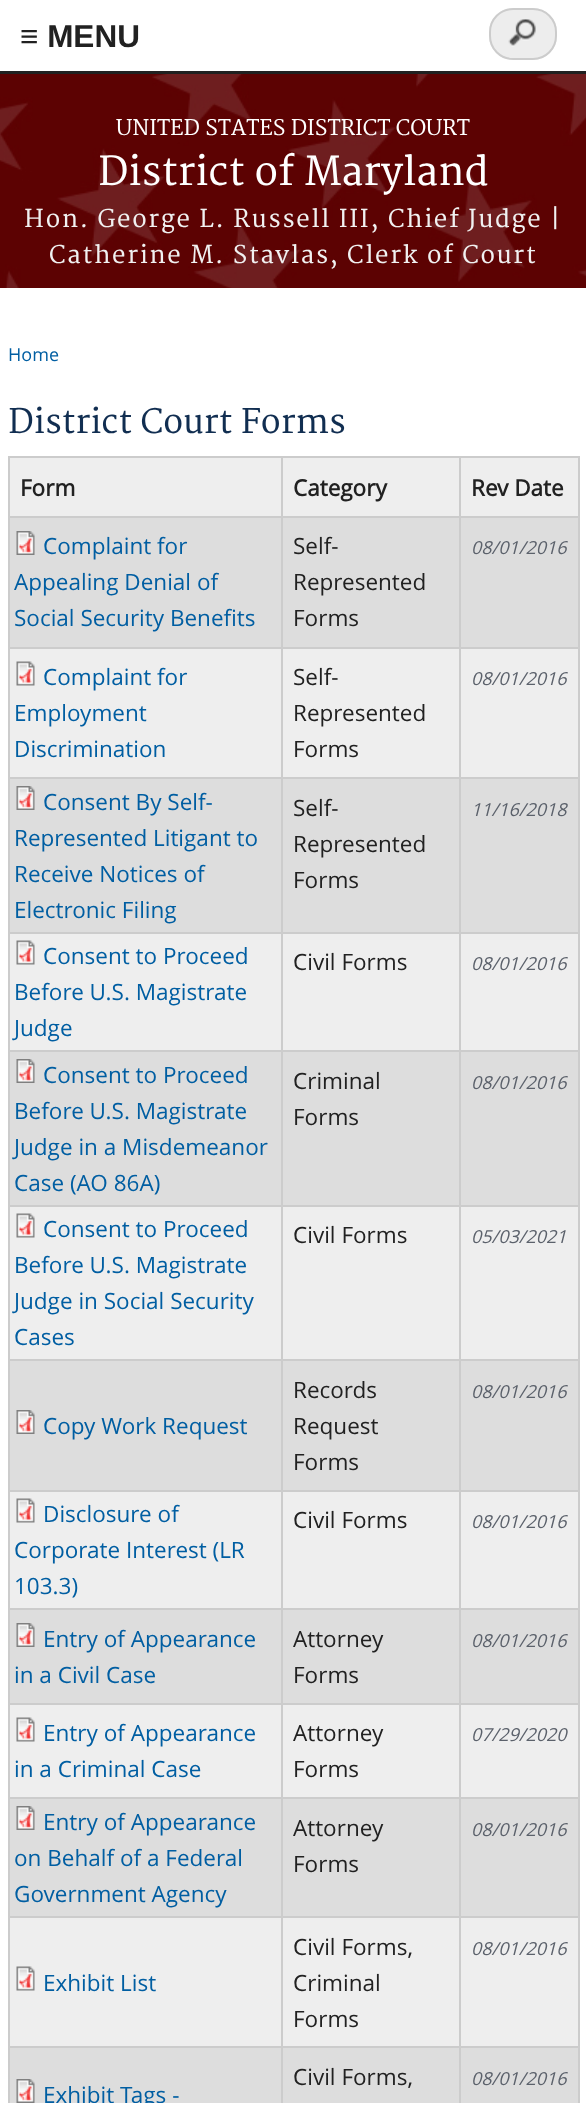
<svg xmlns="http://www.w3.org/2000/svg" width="586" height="2103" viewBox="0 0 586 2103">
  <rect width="100%" height="100%" fill="#fff"/>
  <path d="M0 71h586v3H0z" fill="#212121"/>
  <image x="0" y="74" width="586" height="214" href="img/1.png"/>
  <rect x="489" y="8" width="68" height="52" rx="24" fill="#ededed"/>
  <image x="508" y="19" width="28" height="28" href="img/2.png"/>
  <rect x="490" y="9" width="66" height="50" rx="23" fill="none" stroke="#ccc" stroke-width="2"/>
  <path d="M8 456h571v2H8z" fill="#ccc"/>
  <path d="M578 456h2v1647H578z" fill="#ccc"/>
  <path d="M8 456h2v1647H8z" fill="#ccc"/>
  <path d="M10 458h271v58H10z" fill="#eee"/>
  <path d="M283 458h176v58H283z" fill="#eee"/>
  <path d="M459 516h120v2H459z" fill="#ccc"/>
  <path d="M10 518h568v129H10z" fill="#ddd"/>
  <path d="M459 647h120v2H459z" fill="#ccc"/>
  <path d="M10 649h568v128H10z" fill="#eee"/>
  <path d="M459 777h120v2H459z" fill="#ccc"/>
  <path d="M10 779h568v153H10z" fill="#ddd"/>
  <path d="M459 932h120v2H459z" fill="#ccc"/>
  <path d="M10 934h568v116H10z" fill="#eee"/>
  <path d="M459 1050h120v2H459z" fill="#ccc"/>
  <path d="M10 1052h568v153H10z" fill="#ddd"/>
  <path d="M459 1205h120v2H459z" fill="#ccc"/>
  <path d="M10 1207h568v152H10z" fill="#eee"/>
  <path d="M459 1359h120v2H459z" fill="#ccc"/>
  <path d="M10 1361h568v129H10z" fill="#ddd"/>
  <path d="M459 1490h120v2H459z" fill="#ccc"/>
  <path d="M10 1492h568v116H10z" fill="#eee"/>
  <path d="M459 1608h120v2H459z" fill="#ccc"/>
  <path d="M10 1610h568v93H10z" fill="#ddd"/>
  <path d="M459 1703h120v2H459z" fill="#ccc"/>
  <path d="M10 1705h568v92H10z" fill="#eee"/>
  <path d="M459 1797h120v2H459z" fill="#ccc"/>
  <path d="M10 1799h568v117H10z" fill="#ddd"/>
  <path d="M459 1916h120v2H459z" fill="#ccc"/>
  <path d="M10 1918h568v128H10z" fill="#eee"/>
  <path d="M459 2046h120v2H459z" fill="#ccc"/>
  <path d="M10 2048h568v55H10z" fill="#ddd"/>
  <path d="M459 2046h2v57H459z" fill="#ccc"/>
  <path d="M281 2046h180v2H281z" fill="#ccc"/>
  <path d="M459 1916h2v132H459z" fill="#ccc"/>
  <path d="M281 1916h180v2H281z" fill="#ccc"/>
  <path d="M459 1797h2v120H459z" fill="#ccc"/>
  <path d="M281 1797h180v2H281z" fill="#ccc"/>
  <path d="M459 1703h2v96H459z" fill="#ccc"/>
  <path d="M281 1703h180v2H281z" fill="#ccc"/>
  <path d="M459 1608h2v96H459z" fill="#ccc"/>
  <path d="M281 1608h180v2H281z" fill="#ccc"/>
  <path d="M459 1490h2v120H459z" fill="#ccc"/>
  <path d="M281 1490h180v2H281z" fill="#ccc"/>
  <path d="M459 1359h2v132H459z" fill="#ccc"/>
  <path d="M281 1359h180v2H281z" fill="#ccc"/>
  <path d="M459 1205h2v156H459z" fill="#ccc"/>
  <path d="M281 1205h180v2H281z" fill="#ccc"/>
  <path d="M459 1050h2v156H459z" fill="#ccc"/>
  <path d="M281 1050h180v2H281z" fill="#ccc"/>
  <path d="M459 932h2v120H459z" fill="#ccc"/>
  <path d="M281 932h180v2H281z" fill="#ccc"/>
  <path d="M459 777h2v156H459z" fill="#ccc"/>
  <path d="M281 777h180v2H281z" fill="#ccc"/>
  <path d="M459 647h2v132H459z" fill="#ccc"/>
  <path d="M281 647h180v2H281z" fill="#ccc"/>
  <path d="M459 516h2v132H459z" fill="#ccc"/>
  <path d="M281 516h180v2H281z" fill="#ccc"/>
  <path d="M281 2046h2v57H281z" fill="#ccc"/>
  <path d="M8 2046h274v2H8z" fill="#ccc"/>
  <path d="M281 1916h2v132H281z" fill="#ccc"/>
  <path d="M8 1916h274v2H8z" fill="#ccc"/>
  <path d="M281 1797h2v120H281z" fill="#ccc"/>
  <path d="M8 1797h274v2H8z" fill="#ccc"/>
  <path d="M281 1703h2v96H281z" fill="#ccc"/>
  <path d="M8 1703h274v2H8z" fill="#ccc"/>
  <path d="M281 1608h2v96H281z" fill="#ccc"/>
  <path d="M8 1608h274v2H8z" fill="#ccc"/>
  <path d="M281 1490h2v120H281z" fill="#ccc"/>
  <path d="M8 1490h274v2H8z" fill="#ccc"/>
  <path d="M281 1359h2v132H281z" fill="#ccc"/>
  <path d="M8 1359h274v2H8z" fill="#ccc"/>
  <path d="M281 1205h2v156H281z" fill="#ccc"/>
  <path d="M8 1205h274v2H8z" fill="#ccc"/>
  <path d="M281 1050h2v156H281z" fill="#ccc"/>
  <path d="M8 1050h274v2H8z" fill="#ccc"/>
  <path d="M281 932h2v120H281z" fill="#ccc"/>
  <path d="M8 932h274v2H8z" fill="#ccc"/>
  <path d="M281 777h2v156H281z" fill="#ccc"/>
  <path d="M8 777h274v2H8z" fill="#ccc"/>
  <path d="M281 647h2v132H281z" fill="#ccc"/>
  <path d="M8 647h274v2H8z" fill="#ccc"/>
  <path d="M281 516h2v132H281z" fill="#ccc"/>
  <path d="M8 516h274v2H8z" fill="#ccc"/>
  <path d="M281 456h2v62H281z" fill="#ccc"/>
  <path d="M461 458h117v58H461z" fill="#eee"/>
  <path d="M459 456h2v62H459z" fill="#ccc"/>
  <image x="16" y="531" width="19" height="24" href="img/3.png"/>
  <image x="16" y="661" width="19" height="25" href="img/4.png"/>
  <image x="16" y="786" width="19" height="24" href="img/3.png"/>
  <image x="16" y="940" width="19" height="25" href="img/4.png"/>
  <image x="16" y="1059" width="19" height="24" href="img/3.png"/>
  <image x="16" y="1213" width="19" height="25" href="img/4.png"/>
  <image x="16" y="1410" width="19" height="24" href="img/3.png"/>
  <image x="16" y="1498" width="19" height="25" href="img/4.png"/>
  <image x="16" y="1623" width="19" height="24" href="img/3.png"/>
  <image x="16" y="1717" width="19" height="25" href="img/4.png"/>
  <image x="16" y="1806" width="19" height="24" href="img/3.png"/>
  <image x="16" y="1966" width="19" height="25" href="img/4.png"/>
  <image x="16" y="2079" width="19" height="24" href="img/3.png"/>
  <text x="20" y="47" font-family="Liberation Sans" font-size="31.5" font-weight="bold" fill="#212121">≡ MENU</text>
  <text x="116" y="135" font-family="Merriweather" font-size="21" fill="#fff">UNITED STATES DISTRICT COURT</text>
  <text x="98" y="185" font-family="Merriweather" font-size="39" fill="#fff">District of Maryland</text>
  <g font-family="Merriweather" font-size="24" letter-spacing="1.65" fill="#f1f1f1">
    <text x="24" y="227">Hon. George L. Russell III, Chief Judge |</text>
    <text x="49" y="263">Catherine M. Stavlas, Clerk of Court</text>
  </g>
  <text x="8" y="361" font-family="Open Sans" font-size="18" fill="#005ea2">Home</text>
  <text x="8" y="433" font-family="Merriweather" font-size="33" fill="#112e51">District Court Forms</text>
  <g font-family="Open Sans" font-size="22.5" font-weight="bold" fill="#212121">
    <text x="20" y="496">Form</text>
    <text x="293" y="496">Category</text>
    <text x="471" y="496">Rev Date</text>
  </g>
  <g font-family="Open Sans" font-size="22.5" fill="#005ea2">
    <text x="43" y="554">Complaint for</text>
    <text x="14" y="590">Appealing Denial of</text>
    <text x="14" y="626">Social Security Benefits</text>
  </g>
  <g font-family="Open Sans" font-size="22.5" fill="#212121">
    <text x="293" y="554">Self-</text>
    <text x="293" y="590">Represented</text>
    <text x="293" y="626">Forms</text>
  </g>
  <text x="471" y="554" font-family="Open Sans" font-size="18" font-style="italic" fill="#5b616b">08/01/2016</text>
  <g font-family="Open Sans" font-size="22.5" fill="#005ea2">
    <text x="43" y="685">Complaint for</text>
    <text x="14" y="721">Employment</text>
    <text x="14" y="757">Discrimination</text>
  </g>
  <g font-family="Open Sans" font-size="22.5" fill="#212121">
    <text x="293" y="685">Self-</text>
    <text x="293" y="721">Represented</text>
    <text x="293" y="757">Forms</text>
  </g>
  <text x="471" y="685" font-family="Open Sans" font-size="18" font-style="italic" fill="#5b616b">08/01/2016</text>
  <g font-family="Open Sans" font-size="22.5" fill="#005ea2">
    <text x="43" y="810">Consent By Self-</text>
    <text x="14" y="846">Represented Litigant to</text>
    <text x="14" y="882">Receive Notices of</text>
    <text x="14" y="918">Electronic Filing</text>
  </g>
  <g font-family="Open Sans" font-size="22.5" fill="#212121">
    <text x="293" y="816">Self-</text>
    <text x="293" y="852">Represented</text>
    <text x="293" y="888">Forms</text>
  </g>
  <text x="471" y="816" font-family="Open Sans" font-size="18" font-style="italic" fill="#5b616b">11/16/2018</text>
  <g font-family="Open Sans" font-size="22.5" fill="#005ea2">
    <text x="43" y="964">Consent to Proceed</text>
    <text x="14" y="1000">Before U.S. Magistrate</text>
    <text x="14" y="1036">Judge</text>
  </g>
  <text x="293" y="970" font-family="Open Sans" font-size="22.5" fill="#212121">Civil Forms</text>
  <text x="471" y="970" font-family="Open Sans" font-size="18" font-style="italic" fill="#5b616b">08/01/2016</text>
  <g font-family="Open Sans" font-size="22.5" fill="#005ea2">
    <text x="43" y="1083">Consent to Proceed</text>
    <text x="14" y="1119">Before U.S. Magistrate</text>
    <text x="14" y="1155">Judge in a Misdemeanor</text>
    <text x="14" y="1191">Case (AO 86A)</text>
  </g>
  <g font-family="Open Sans" font-size="22.5" fill="#212121">
    <text x="293" y="1089">Criminal</text>
    <text x="293" y="1125">Forms</text>
  </g>
  <text x="471" y="1089" font-family="Open Sans" font-size="18" font-style="italic" fill="#5b616b">08/01/2016</text>
  <g font-family="Open Sans" font-size="22.5" fill="#005ea2">
    <text x="43" y="1237">Consent to Proceed</text>
    <text x="14" y="1273">Before U.S. Magistrate</text>
    <text x="14" y="1309">Judge in Social Security</text>
    <text x="14" y="1345">Cases</text>
  </g>
  <text x="293" y="1243" font-family="Open Sans" font-size="22.5" fill="#212121">Civil Forms</text>
  <text x="471" y="1243" font-family="Open Sans" font-size="18" font-style="italic" fill="#5b616b">05/03/2021</text>
  <g font-family="Open Sans" font-size="22.5" fill="#212121">
    <text x="293" y="1398">Records</text>
    <text x="293" y="1434">Request</text>
    <text x="293" y="1470">Forms</text>
  </g>
  <text x="471" y="1398" font-family="Open Sans" font-size="18" font-style="italic" fill="#5b616b">08/01/2016</text>
  <g font-family="Open Sans" font-size="22.5" fill="#005ea2">
    <text x="43" y="1434">Copy Work Request</text>
    <text x="43" y="1522">Disclosure of</text>
    <text x="14" y="1558">Corporate Interest (LR</text>
    <text x="14" y="1594">103.3)</text>
  </g>
  <text x="293" y="1528" font-family="Open Sans" font-size="22.5" fill="#212121">Civil Forms</text>
  <text x="471" y="1528" font-family="Open Sans" font-size="18" font-style="italic" fill="#5b616b">08/01/2016</text>
  <g font-family="Open Sans" font-size="22.5" fill="#005ea2">
    <text x="43" y="1647">Entry of Appearance</text>
    <text x="14" y="1683">in a Civil Case</text>
  </g>
  <g font-family="Open Sans" font-size="22.5" fill="#212121">
    <text x="293" y="1647">Attorney</text>
    <text x="293" y="1683">Forms</text>
  </g>
  <text x="471" y="1647" font-family="Open Sans" font-size="18" font-style="italic" fill="#5b616b">08/01/2016</text>
  <g font-family="Open Sans" font-size="22.5" fill="#005ea2">
    <text x="43" y="1741">Entry of Appearance</text>
    <text x="14" y="1777">in a Criminal Case</text>
  </g>
  <g font-family="Open Sans" font-size="22.5" fill="#212121">
    <text x="293" y="1741">Attorney</text>
    <text x="293" y="1777">Forms</text>
  </g>
  <text x="471" y="1741" font-family="Open Sans" font-size="18" font-style="italic" fill="#5b616b">07/29/2020</text>
  <g font-family="Open Sans" font-size="22.5" fill="#005ea2">
    <text x="43" y="1830">Entry of Appearance</text>
    <text x="14" y="1866">on Behalf of a Federal</text>
    <text x="14" y="1902">Government Agency</text>
  </g>
  <g font-family="Open Sans" font-size="22.5" fill="#212121">
    <text x="293" y="1836">Attorney</text>
    <text x="293" y="1872">Forms</text>
  </g>
  <text x="471" y="1836" font-family="Open Sans" font-size="18" font-style="italic" fill="#5b616b">08/01/2016</text>
  <g font-family="Open Sans" font-size="22.5" fill="#212121">
    <text x="293" y="1955">Civil Forms,</text>
    <text x="293" y="1991">Criminal</text>
    <text x="293" y="2027">Forms</text>
  </g>
  <text x="471" y="1955" font-family="Open Sans" font-size="18" font-style="italic" fill="#5b616b">08/01/2016</text>
  <text x="43" y="1991" font-family="Open Sans" font-size="22.5" fill="#005ea2">Exhibit List</text>
  <text x="293" y="2085" font-family="Open Sans" font-size="22.5" fill="#212121">Civil Forms,</text>
  <text x="471" y="2085" font-family="Open Sans" font-size="18" font-style="italic" fill="#5b616b">08/01/2016</text>
  <text x="43" y="2103" font-family="Open Sans" font-size="22.5" fill="#005ea2">Exhibit Tags -</text>
</svg>
